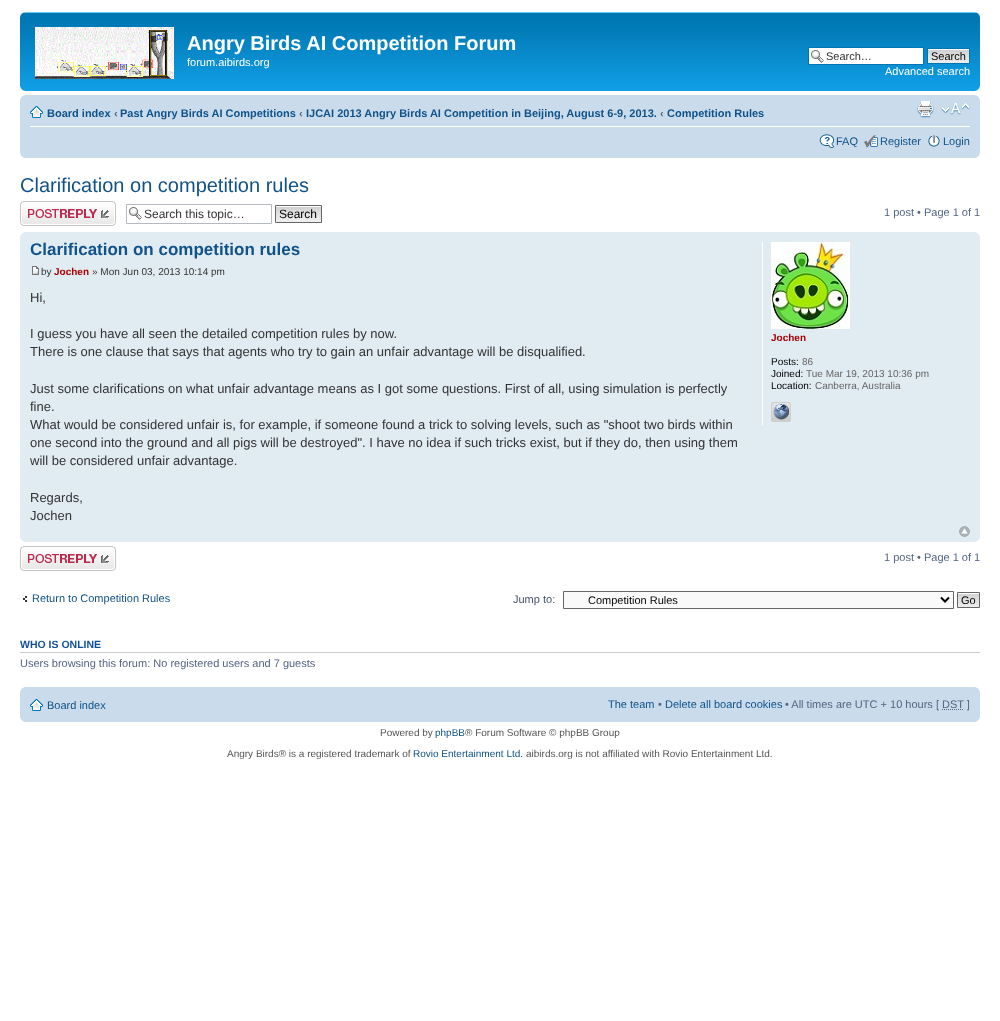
<svg xmlns="http://www.w3.org/2000/svg" width="1000" height="1021" viewBox="0 0 1000 1021">
  <rect width="100%" height="100%" fill="#fff"/>
  <image x="20" y="12" width="960" height="79" href="img/1.png"/>
  <image x="20" y="12" width="5" height="5" href="img/2.png"/>
  <image x="975" y="12" width="5" height="5" href="img/3.png"/>
  <image x="35" y="27" width="139" height="52" href="img/4.png"/>
  <path d="M809 48h114v16H809z" fill="#fff"/>
  <image x="811" y="50" width="13" height="13" href="img/5.png"/>
  <path d="M808.5 47.5h115v17H808.5z" fill="none" stroke="#0075b0"/>
  <image x="928" y="49" width="41" height="14" href="img/6.png"/>
  <path d="M927.5 48.5h42v15H927.5z" fill="none" stroke="#0075b0"/>
  <image x="20" y="86" width="5" height="5" href="img/7.png"/>
  <image x="975" y="86" width="5" height="5" href="img/8.png"/>
  <path d="M20 95h960v63H20z" fill="#cadceb"/>
  <image x="20" y="95" width="5" height="5" href="img/9.png"/>
  <image x="975" y="95" width="5" height="5" href="img/10.png"/>
  <path d="M30 126h940v1H30z" fill="#fff"/>
  <image x="30" y="106" width="13" height="12" href="img/11.png"/>
  <image x="917" y="101" width="17" height="17" href="img/12.png"/>
  <image x="941" y="103" width="29" height="12" href="img/13.png"/>
  <image x="819" y="134" width="16" height="14" href="img/14.png"/>
  <image x="864" y="135" width="14" height="13" href="img/15.png"/>
  <image x="928" y="135" width="12" height="12" href="img/16.png"/>
  <image x="20" y="153" width="5" height="5" href="img/17.png"/>
  <image x="975" y="153" width="5" height="5" href="img/18.png"/>
  <image x="20" y="201" width="96" height="25" href="img/19.png"/>
  <image x="129" y="207" width="13" height="13" href="img/5.png"/>
  <path d="M126.5 204.5h145v19H126.5z" fill="none" stroke="#b4bac0"/>
  <image x="276" y="206" width="45" height="16" href="img/20.png"/>
  <path d="M275.5 205.5h46v17H275.5z" fill="none" stroke="#666"/>
  <path d="M20 232h960v310H20z" fill="#e1ebf2"/>
  <image x="20" y="232" width="5" height="5" href="img/21.png"/>
  <image x="975" y="232" width="5" height="5" href="img/22.png"/>
  <image x="32" y="266" width="7" height="9" href="img/23.png"/>
  <path d="M762 242h1v183H762z" fill="#fff"/>
  <image x="771" y="242" width="79" height="87" href="img/24.png"/>
  <image x="771" y="402" width="20" height="20" href="img/25.png"/>
  <image x="959" y="526" width="11" height="11" href="img/26.png"/>
  <image x="20" y="537" width="5" height="5" href="img/27.png"/>
  <image x="975" y="537" width="5" height="5" href="img/28.png"/>
  <image x="20" y="546" width="96" height="25" href="img/19.png"/>
  <image x="23" y="596" width="4" height="6" href="img/29.png"/>
  <path d="M563.5 591.5h390v17H563.5z" fill="#fafafa" stroke="#666"/>
  <path d="M941 597.5L945 601.5L949 597.5" fill="none" stroke="#000" stroke-width="2"/>
  <image x="958" y="593" width="21" height="14" href="img/30.png"/>
  <path d="M957.5 592.5h22v15H957.5z" fill="none" stroke="#666"/>
  <path d="M20 652h960v1H20z" fill="#ccc"/>
  <path d="M20 687h960v35H20z" fill="#cadceb"/>
  <image x="20" y="687" width="5" height="5" href="img/9.png"/>
  <image x="975" y="687" width="5" height="5" href="img/10.png"/>
  <image x="30" y="699" width="13" height="12" href="img/11.png"/>
  <path d="M942 709.5H964" fill="none" stroke="#536482" stroke-dasharray="1 1"/>
  <image x="20" y="717" width="5" height="5" href="img/17.png"/>
  <image x="975" y="717" width="5" height="5" href="img/18.png"/>
  <text x="187" y="50" font-family="Liberation Sans" font-size="20" font-weight="bold" fill="#fff">Angry Birds AI Competition Forum</text>
  <text x="187" y="66" font-family="Liberation Sans" font-size="11" fill="#fff">forum.aibirds.org</text>
  <text x="826" y="60" font-family="Liberation Sans" font-size="11" fill="#333">Search…</text>
  <text x="931" y="60" font-family="Liberation Sans" font-size="11" fill="#000">Search</text>
  <text x="885" y="75" font-family="Liberation Sans" font-size="11" fill="#fff">Advanced search</text>
  <text x="47" y="117" font-family="Liberation Sans" font-size="11" font-weight="bold" fill="#105289">Board index</text>
  <text x="114" y="117" font-family="Liberation Sans" font-size="11" font-weight="bold" fill="#536482">‹</text>
  <text x="120" y="117" font-family="Liberation Sans" font-size="11" font-weight="bold" fill="#105289">Past Angry Birds AI Competitions</text>
  <text x="299" y="117" font-family="Liberation Sans" font-size="11" font-weight="bold" fill="#536482">‹</text>
  <text x="306" y="117" font-family="Liberation Sans" font-size="11" font-weight="bold" fill="#105289">IJCAI 2013 Angry Birds AI Competition in Beijing, August 6-9, 2013.</text>
  <text x="660" y="117" font-family="Liberation Sans" font-size="11" font-weight="bold" fill="#536482">‹</text>
  <text x="667" y="117" font-family="Liberation Sans" font-size="11" font-weight="bold" fill="#105289">Competition Rules</text>
  <g font-family="Liberation Sans" font-size="11" fill="#105289">
    <text x="836" y="145">FAQ</text>
    <text x="880" y="145">Register</text>
    <text x="943" y="145">Login</text>
  </g>
  <text x="20" y="192" font-family="Liberation Sans" font-size="20" fill="#105289">Clarification on competition rules</text>
  <text x="144" y="218" font-family="Liberation Sans" font-size="12" fill="#333">Search this topic…</text>
  <text x="279" y="218" font-family="Liberation Sans" font-size="12" fill="#000">Search</text>
  <text x="884" y="216" font-family="Liberation Sans" font-size="11" fill="#536482">1 post • Page 1 of 1</text>
  <text x="30" y="255" font-family="Liberation Sans" font-size="17" font-weight="bold" fill="#105289">Clarification on competition rules</text>
  <text x="41" y="275" font-family="Liberation Sans" font-size="10" fill="#333">by</text>
  <text x="54" y="275" font-family="Liberation Sans" font-size="10" font-weight="bold" fill="#a00">Jochen</text>
  <text x="92" y="275" font-family="Liberation Sans" font-size="10" fill="#333">» Mon Jun 03, 2013 10:14 pm</text>
  <g font-family="Liberation Sans" font-size="13" fill="#333">
    <text x="30" y="302">Hi,</text>
    <text x="30" y="338">I guess you have all seen the detailed competition rules by now.</text>
    <text x="30" y="356">There is one clause that says that agents who try to gain an unfair advantage will be disqualified.</text>
    <text x="30" y="393">Just some clarifications on what unfair advantage means as I got some questions. First of all, using simulation is perfectly</text>
    <text x="30" y="411">fine.</text>
    <text x="30" y="429">What would be considered unfair is, for example, if someone found a trick to solving levels, such as "shoot two birds within</text>
    <text x="30" y="447">one second into the ground and all pigs will be destroyed". I have no idea if such tricks exist, but if they do, then using them</text>
    <text x="30" y="465">will be considered unfair advantage.</text>
    <text x="30" y="502">Regards,</text>
    <text x="30" y="520">Jochen</text>
  </g>
  <text x="771" y="341" font-family="Liberation Sans" font-size="10" font-weight="bold" fill="#a00">Jochen</text>
  <text x="771" y="365" font-family="Liberation Sans" font-size="10" fill="#000">Posts:</text>
  <text x="802" y="365" font-family="Liberation Sans" font-size="10" fill="#666">86</text>
  <text x="771" y="377" font-family="Liberation Sans" font-size="10" fill="#000">Joined:</text>
  <text x="806" y="377" font-family="Liberation Sans" font-size="10" fill="#666">Tue Mar 19, 2013 10:36 pm</text>
  <text x="771" y="389" font-family="Liberation Sans" font-size="10" fill="#000">Location:</text>
  <text x="815" y="389" font-family="Liberation Sans" font-size="10" fill="#666">Canberra, Australia</text>
  <text x="884" y="561" font-family="Liberation Sans" font-size="11" fill="#536482">1 post • Page 1 of 1</text>
  <text x="32" y="602" font-family="Liberation Sans" font-size="11" fill="#105289">Return to Competition Rules</text>
  <text x="513" y="603" font-family="Liberation Sans" font-size="11" fill="#425067">Jump to:</text>
  <g font-family="Liberation Sans" font-size="11" fill="#000">
    <text x="588" y="604">Competition Rules</text>
    <text x="961" y="604">Go</text>
  </g>
  <text x="20" y="648" font-family="Liberation Sans" font-size="10.5" font-weight="bold" fill="#115098">WHO IS ONLINE</text>
  <text x="20" y="667" font-family="Liberation Sans" font-size="11" fill="#536482">Users browsing this forum: No registered users and 7 guests</text>
  <g font-family="Liberation Sans" font-size="11" fill="#105289">
    <text x="47" y="709">Board index</text>
    <text x="608" y="708">The team</text>
  </g>
  <text x="658" y="708" font-family="Liberation Sans" font-size="11" fill="#536482">•</text>
  <text x="665" y="708" font-family="Liberation Sans" font-size="11" fill="#105289">Delete all board cookies</text>
  <text x="785" y="708" font-family="Liberation Sans" font-size="11" fill="#536482">• All times are UTC + 10 hours [ DST ]</text>
  <text x="380" y="736" font-family="Liberation Sans" font-size="10" fill="#555">Powered by</text>
  <text x="435" y="736" font-family="Liberation Sans" font-size="10" fill="#105289">phpBB</text>
  <g font-family="Liberation Sans" font-size="10" fill="#555">
    <text x="465" y="736">® Forum Software © phpBB Group</text>
    <text x="227" y="757">Angry Birds® is a registered trademark of</text>
  </g>
  <text x="413" y="757" font-family="Liberation Sans" font-size="10" fill="#105289">Rovio Entertainment Ltd.</text>
  <text x="526" y="757" font-family="Liberation Sans" font-size="10" fill="#555">aibirds.org is not affiliated with Rovio Entertainment Ltd.</text>
</svg>
